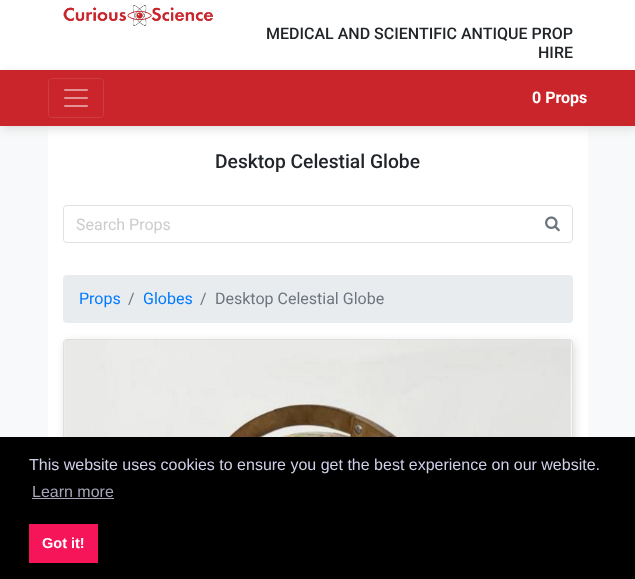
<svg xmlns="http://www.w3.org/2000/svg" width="635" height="579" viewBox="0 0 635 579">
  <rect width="100%" height="100%" fill="#f8f9fa"/>
  <path d="M0 0h635v70H0z" fill="#fff"/>
  <image x="63" y="5" width="150" height="21" href="img/1.png"/>
  <path d="M48 126h540v311H48z" fill="#fff"/>
  <path d="M2 73h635v56H2z" fill="#ddd" filter="blur(5px)"/>
  <path d="M0 70h635v56H0z" fill="#c9252b"/>
  <rect x="48.5" y="78.5" width="55" height="39" rx="3.5" fill="none" stroke="#ce3b40"/>
  <image x="64" y="89" width="24" height="18" href="img/2.png"/>
  <path d="M67 205H534V243H67C65 243 63 241 63 239V209C63 207 65 205 67 205ZM67 206H534V242H67C65 242 64 241 64 239V209C64 207 65 206 67 206Z" fill="#dee2e6" fill-rule="evenodd"/>
  <path d="M533 205H569C571 205 573 207 573 209V239C573 241 571 243 569 243H533ZM533 206H569C571 206 572 207 572 209V239C572 241 571 242 569 242H533Z" fill="#dee2e6" fill-rule="evenodd"/>
  <image x="545" y="216" width="15" height="16" href="img/3.png"/>
  <rect x="63" y="275" width="510" height="48" rx="4" fill="#e9ecef"/>
  <rect x="65" y="342" width="510" height="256" rx="4" fill="#ddd" filter="blur(5px)"/>
  <rect x="63.5" y="339.5" width="509" height="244" rx="3.5" fill="#fff" stroke="#dfdfdf"/>
  <image x="64" y="340" width="508" height="97" href="img/4.png"/>
  <path d="M0 437h635v142H0z" fill="#000"/>
  <path d="M32 498h82v1H32z" fill="#a6a6ba"/>
  <path d="M29 524h69v39H29z" fill="#f71559"/>
  <g font-family="Roboto" font-size="16" font-weight="500" fill="#212529">
    <text x="266" y="39">MEDICAL AND SCIENTIFIC ANTIQUE PROP</text>
    <text x="538" y="58">HIRE</text>
  </g>
  <text x="532" y="103" font-family="Roboto" font-size="16" font-weight="bold" fill="#fff">0 Props</text>
  <text x="215" y="168" font-family="Roboto" font-size="19.25" font-weight="500" fill="#212529">Desktop Celestial Globe</text>
  <text x="76" y="230" font-family="Roboto" font-size="16" fill="#ccc">Search Props</text>
  <text x="79" y="304" font-family="Roboto" font-size="16" fill="#007bff">Props</text>
  <text x="128" y="304" font-family="Roboto" font-size="16" fill="#6c757d">/</text>
  <text x="143" y="304" font-family="Roboto" font-size="16" fill="#007bff">Globes</text>
  <g font-family="Roboto" font-size="16" fill="#6c757d">
    <text x="200" y="304">/</text>
    <text x="215" y="304">Desktop Celestial Globe</text>
  </g>
  <text x="29" y="470" font-family="Liberation Sans" font-size="16" fill="#cfcfe8">This website uses cookies to ensure you get the best experience on our website.</text>
  <text x="32" y="497" font-family="Liberation Sans" font-size="16" fill="#a6a6ba">Learn more</text>
  <text x="42" y="548" font-family="Liberation Sans" font-size="14.5" font-weight="bold" fill="#fff">Got it!</text>
</svg>
